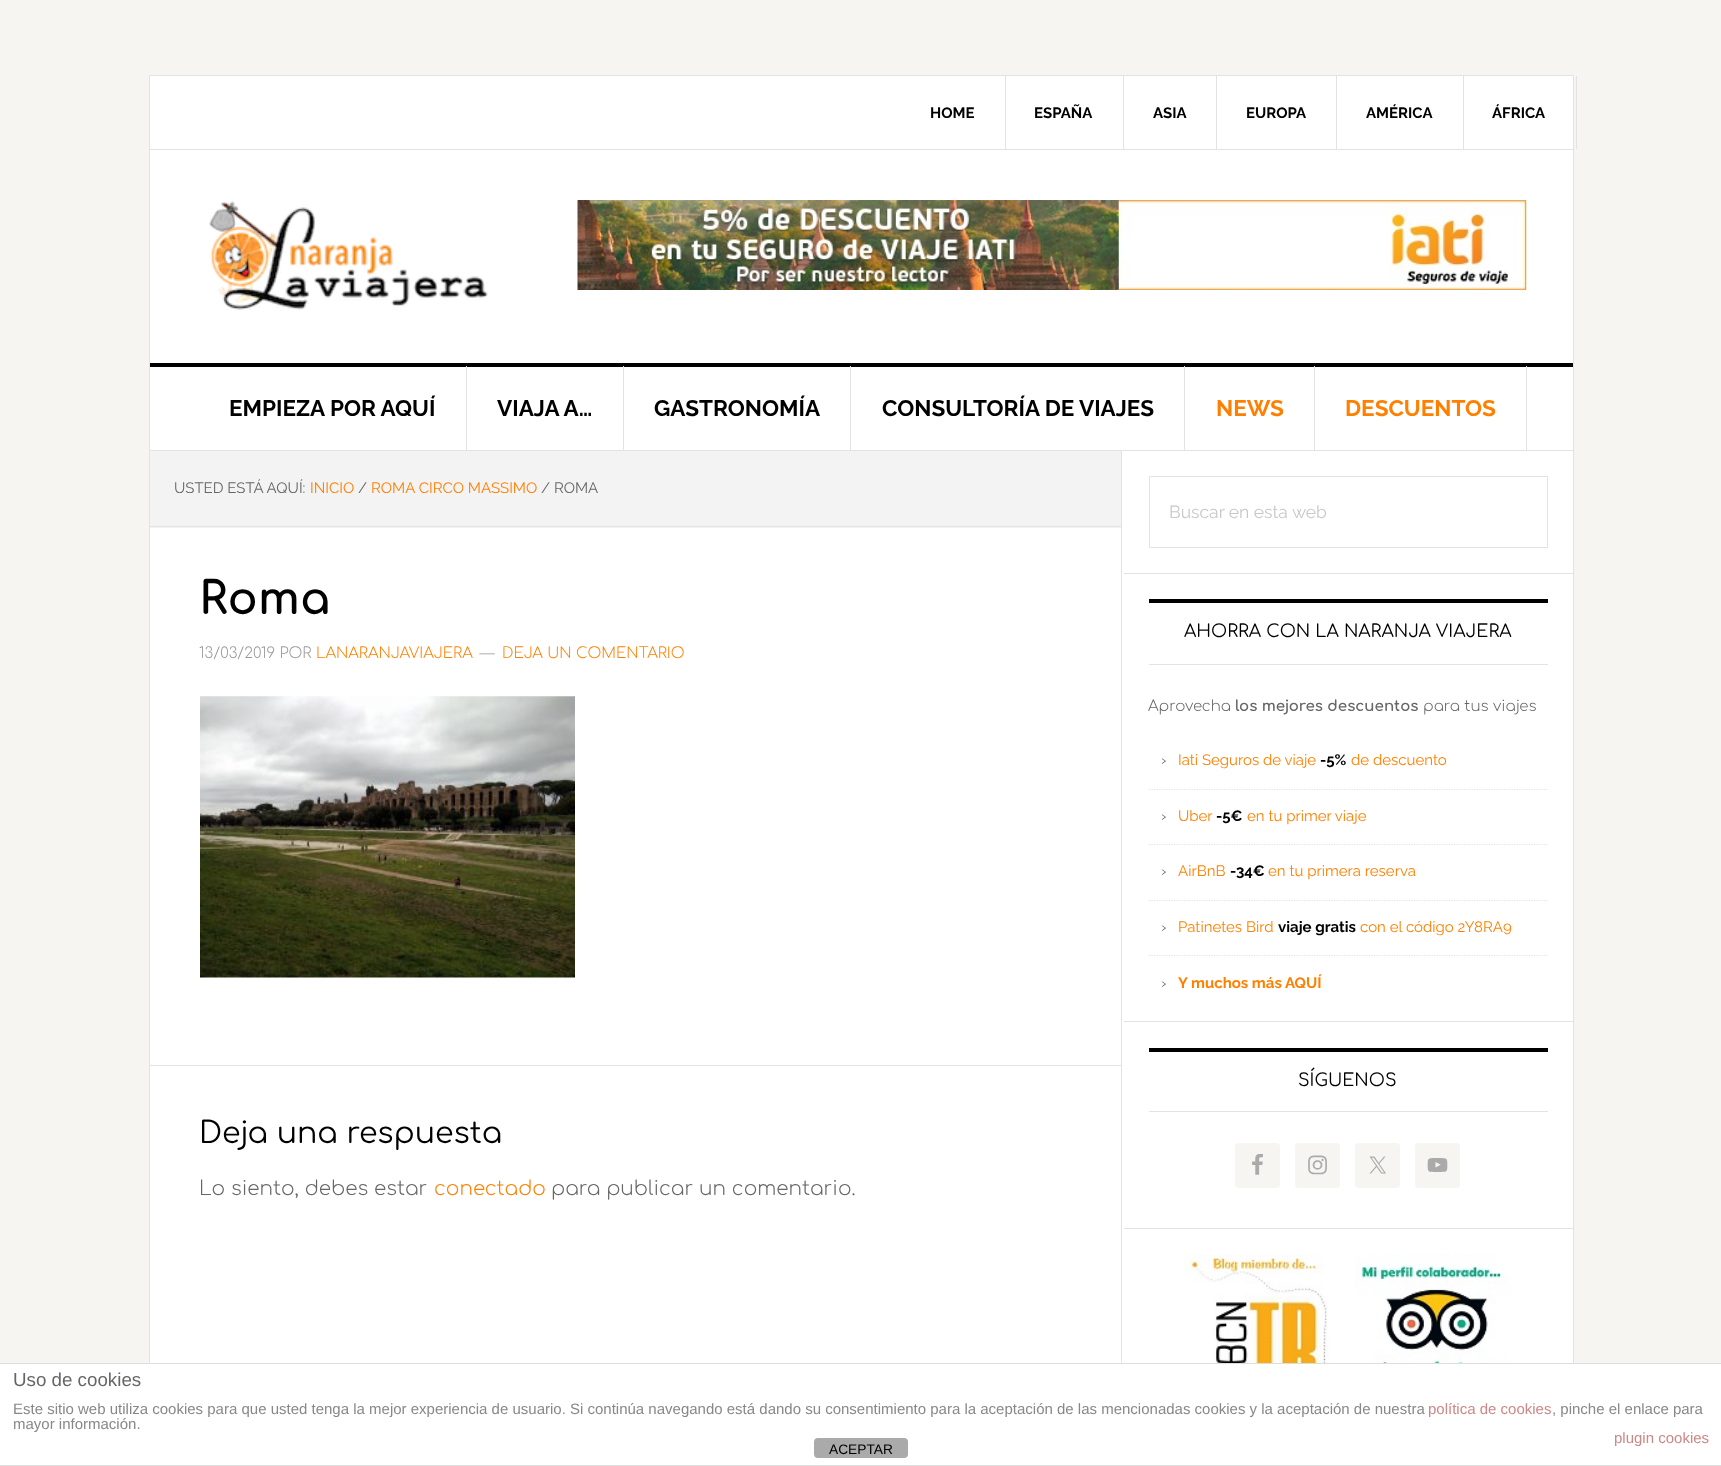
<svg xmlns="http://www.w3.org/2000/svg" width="1721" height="1466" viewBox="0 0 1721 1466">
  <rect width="100%" height="100%" fill="#f6f5f2"/>
  <path d="M150 76h1423v1287H150z" fill="#fff"/>
  <path d="M149.5 75.5h1424v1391H149.5z" fill="none" stroke="#e3e3e3"/>
  <path d="M150 149h1423v1H150z" fill="#e3e3e3"/>
  <path d="M1005 76h1v73H1005z" fill="#e3e3e3"/>
  <path d="M1123 76h1v73H1123z" fill="#e3e3e3"/>
  <path d="M1216 76h1v73H1216z" fill="#e3e3e3"/>
  <path d="M1336 76h1v73H1336z" fill="#e3e3e3"/>
  <path d="M1463 76h1v73H1463z" fill="#e3e3e3"/>
  <path d="M1576 76h1v73H1576z" fill="#e3e3e3"/>
  <path d="M150 363h1423v4H150z" fill="#000"/>
  <image x="209" y="201" width="279" height="109" href="img/1.png"/>
  <image x="577" y="200" width="950" height="90" href="img/2.png"/>
  <path d="M150 450h1423v1H150z" fill="#e3e3e3"/>
  <path d="M466 366h1v84H466z" fill="#e3e3e3"/>
  <path d="M623 366h1v84H623z" fill="#e3e3e3"/>
  <path d="M850 366h1v84H850z" fill="#e3e3e3"/>
  <path d="M1184 366h1v84H1184z" fill="#e3e3e3"/>
  <path d="M1314 366h1v84H1314z" fill="#e3e3e3"/>
  <path d="M1526 366h1v84H1526z" fill="#e3e3e3"/>
  <path d="M1121 451h1v912H1121z" fill="#e3e3e3"/>
  <path d="M150 451h971v77H150z" fill="#f3f3f3"/>
  <path d="M150 526h971v1H150z" fill="#e3e3e3"/>
  <path d="M150 1065h971v1H150z" fill="#e3e3e3"/>
  <image x="200" y="696" width="375" height="282" href="img/3.png"/>
  <path d="M1124 573h449v1H1124z" fill="#e3e3e3"/>
  <path d="M1149.5 476.5h398v71H1149.5z" fill="none" stroke="#e3e3e3"/>
  <path d="M1124 1021h449v1H1124z" fill="#e3e3e3"/>
  <path d="M1149 599h399v4H1149z" fill="#000"/>
  <path d="M1149 664h399v1H1149z" fill="#e3e3e3"/>
  <path d="M1149 789.5H1547.5" fill="none" stroke="#e3e3e3" stroke-width="1.2" stroke-dasharray="1.25 1.25"/>
  <path d="M1149 844.5H1547.5" fill="none" stroke="#e3e3e3" stroke-width="1.2" stroke-dasharray="1.25 1.25"/>
  <path d="M1149 900.5H1547.5" fill="none" stroke="#e3e3e3" stroke-width="1.2" stroke-dasharray="1.25 1.25"/>
  <path d="M1149 955.5H1547.5" fill="none" stroke="#e3e3e3" stroke-width="1.2" stroke-dasharray="1.25 1.25"/>
  <path d="M1124 1228h449v1H1124z" fill="#e3e3e3"/>
  <path d="M1149 1048h399v4H1149z" fill="#000"/>
  <path d="M1149 1111h399v1H1149z" fill="#e3e3e3"/>
  <rect x="1235" y="1143" width="45" height="45" rx="4" fill="#f6f5f2"/>
  <image x="1252" y="1154" width="11" height="21" href="img/4.png"/>
  <rect x="1295" y="1143" width="45" height="45" rx="4" fill="#f6f5f2"/>
  <image x="1308" y="1155" width="19" height="20" href="img/5.png"/>
  <rect x="1355" y="1143" width="45" height="45" rx="4" fill="#f6f5f2"/>
  <image x="1369" y="1156" width="17" height="18" href="img/6.png"/>
  <rect x="1415" y="1143" width="45" height="45" rx="4" fill="#f6f5f2"/>
  <image x="1427" y="1158" width="21" height="14" href="img/7.png"/>
  <image x="1184" y="1254" width="145" height="109" href="img/8.png"/>
  <image x="1355" y="1254" width="155" height="109" href="img/9.png"/>
  <path d="M0 1364h1721v101H0z" fill="#fff"/>
  <path d="M0 1363h1721v1H0z" fill="#ddd"/>
  <path d="M0 1465h1721v1H0z" fill="#ddd"/>
  <rect x="814" y="1438" width="94" height="20" rx="4" fill="#aaa"/>
  <g font-family="Raleway" font-size="15" font-weight="bold" fill="#000">
    <text x="930" y="118">HOME</text>
    <text x="1034" y="118">ESPAÑA</text>
    <text x="1153" y="118">ASIA</text>
    <text x="1246" y="118">EUROPA</text>
    <text x="1366" y="118">AMÉRICA</text>
    <text x="1492" y="118">ÁFRICA</text>
  </g>
  <g font-family="Raleway" font-size="22.5" font-weight="bold" fill="#000">
    <text x="229" y="416">EMPIEZA POR AQUÍ</text>
    <text x="497" y="416">VIAJA A…</text>
    <text x="654" y="416">GASTRONOMÍA</text>
    <text x="882" y="416">CONSULTORÍA DE VIAJES</text>
  </g>
  <g font-family="Raleway" font-size="22.5" font-weight="bold" fill="#ff8000">
    <text x="1216" y="416">NEWS</text>
    <text x="1345" y="416">DESCUENTOS</text>
  </g>
  <text x="174" y="493" font-family="Raleway" font-size="15" fill="#666">USTED ESTÁ AQUÍ:</text>
  <text x="310" y="493" font-family="Raleway" font-size="15" fill="#ff8000">INICIO</text>
  <text x="358" y="493" font-family="Raleway" font-size="15" fill="#666">/</text>
  <text x="371" y="493" font-family="Raleway" font-size="15" fill="#ff8000">ROMA CIRCO MASSIMO</text>
  <text x="541" y="493" font-family="Raleway" font-size="15" fill="#666">/ ROMA</text>
  <text x="199" y="614" font-family="Comfortaa" font-size="45" font-weight="bold" fill="#000">Roma</text>
  <text x="199" y="658" font-family="Comfortaa" font-size="15" font-weight="300" fill="#999">13/03/2019 POR</text>
  <text x="316" y="658" font-family="Comfortaa" font-size="15" font-weight="300" fill="#ff8000">LANARANJAVIAJERA</text>
  <text x="480" y="658" font-family="Comfortaa" font-size="15" font-weight="300" fill="#999">—</text>
  <text x="502" y="658" font-family="Comfortaa" font-size="15" font-weight="300" fill="#ff8000">DEJA UN COMENTARIO</text>
  <text x="199" y="1143" font-family="Comfortaa" font-size="30" fill="#000">Deja una respuesta</text>
  <text x="199" y="1195" font-family="Comfortaa" font-size="20" font-weight="300" fill="#666">Lo siento, debes estar</text>
  <text x="434" y="1195" font-family="Comfortaa" font-size="20" font-weight="300" fill="#ff8000">conectado</text>
  <text x="551" y="1195" font-family="Comfortaa" font-size="20" font-weight="300" fill="#666">para publicar un comentario.</text>
  <text x="1169" y="518" font-family="Raleway" font-size="17.5" fill="#c8c8c8">Buscar en esta web</text>
  <text x="1184" y="637" font-family="Comfortaa" font-size="17.5" fill="#000">AHORRA CON LA NARANJA VIAJERA</text>
  <text x="1148" y="711" font-family="Comfortaa" font-size="15" font-weight="300" fill="#666">Aprovecha</text>
  <text x="1235" y="711" font-family="Comfortaa" font-size="15" font-weight="bold" fill="#666">los mejores descuentos</text>
  <text x="1423" y="711" font-family="Comfortaa" font-size="15" font-weight="300" fill="#666">para tus viajes</text>
  <text x="1161" y="765" font-family="Raleway" font-size="15" fill="#666">›</text>
  <text x="1178" y="765" font-family="Raleway" font-size="15" fill="#ff8000">Iati Seguros de viaje</text>
  <text x="1320" y="765" font-family="Raleway" font-size="15" font-weight="bold" fill="#000">-5%</text>
  <text x="1351" y="765" font-family="Raleway" font-size="15" fill="#ff8000">de descuento</text>
  <text x="1161" y="821" font-family="Raleway" font-size="15" fill="#666">›</text>
  <text x="1178" y="821" font-family="Raleway" font-size="15" fill="#ff8000">Uber</text>
  <text x="1216" y="821" font-family="Raleway" font-size="15" font-weight="bold" fill="#000">-5€</text>
  <text x="1247" y="821" font-family="Raleway" font-size="15" fill="#ff8000">en tu primer viaje</text>
  <text x="1161" y="876" font-family="Raleway" font-size="15" fill="#666">›</text>
  <text x="1178" y="876" font-family="Raleway" font-size="15" fill="#ff8000">AirBnB</text>
  <text x="1230" y="876" font-family="Raleway" font-size="15" font-weight="bold" fill="#000">-34€</text>
  <text x="1268" y="876" font-family="Raleway" font-size="15" fill="#ff8000">en tu primera reserva</text>
  <text x="1161" y="932" font-family="Raleway" font-size="15" fill="#666">›</text>
  <text x="1178" y="932" font-family="Raleway" font-size="15" fill="#ff8000">Patinetes Bird</text>
  <text x="1278" y="932" font-family="Raleway" font-size="15" font-weight="bold" fill="#000">viaje gratis</text>
  <text x="1360" y="932" font-family="Raleway" font-size="15" fill="#ff8000">con el código 2Y8RA9</text>
  <text x="1161" y="988" font-family="Raleway" font-size="15" fill="#666">›</text>
  <text x="1178" y="988" font-family="Raleway" font-size="15" font-weight="bold" fill="#ff8000">Y muchos más AQUÍ</text>
  <text x="1298" y="1086" font-family="Comfortaa" font-size="17.5" fill="#000">SÍGUENOS</text>
  <text x="13" y="1386" font-family="Liberation Sans" font-size="18.75" fill="#666">Uso de cookies</text>
  <text x="13" y="1414" font-family="Liberation Sans" font-size="15" fill="#888">Este sitio web utiliza cookies para que usted tenga la mejor experiencia de usuario. Si continúa navegando está dando su consentimiento para la aceptación de las mencionadas cookies y la aceptación de nuestra</text>
  <text x="1428" y="1414" font-family="Liberation Sans" font-size="15" fill="#c88">política de cookies</text>
  <g font-family="Liberation Sans" font-size="15" fill="#888">
    <text x="1552" y="1414">, pinche el enlace para</text>
    <text x="13" y="1429">mayor información.</text>
  </g>
  <text x="1614" y="1443" font-family="Liberation Sans" font-size="15" fill="#c88">plugin cookies</text>
  <text x="829" y="1454" font-family="Liberation Sans" font-size="13.75" fill="#000">ACEPTAR</text>
</svg>
